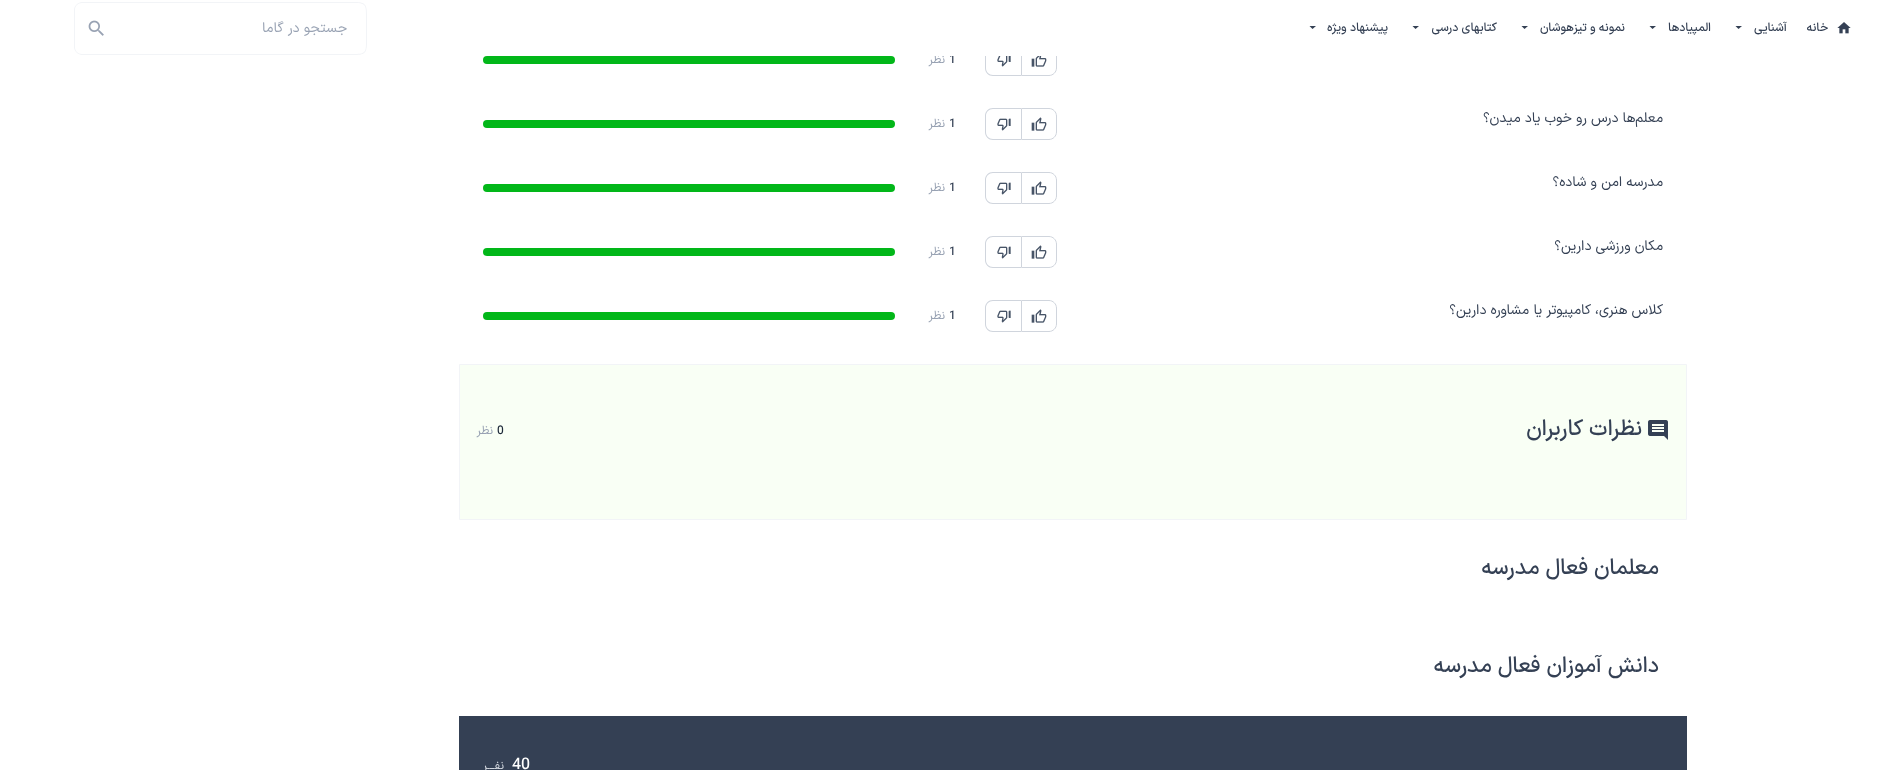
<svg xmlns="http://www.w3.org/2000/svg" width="1894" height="770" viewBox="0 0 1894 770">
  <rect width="100%" height="100%" fill="#fff"/>
  <image x="1837" y="22" width="14" height="12" href="img/1.png"/>
  <path d="M1735.5 26H1742L1738.5 29Z" fill="#344054"/>
  <path d="M1649.5 26H1656L1652.5 29Z" fill="#344054"/>
  <path d="M1521.5 26H1528L1524.5 29Z" fill="#344054"/>
  <path d="M1412.5 26H1419L1415.5 29Z" fill="#344054"/>
  <path d="M1309.5 26H1316L1312.5 29Z" fill="#344054"/>
  <path d="M355 2C366 2 367 5 367 16V41C367 52 366 55 355 55ZM355 3C366 3 366 6 366 16V41C366 51 366 54 355 54Z" fill="#f2f4f7" fill-rule="evenodd"/>
  <image x="88" y="20" width="16" height="16" href="img/2.png"/>
  <path d="M1021.5 44.5H1049C1053 44.5 1056.5 48 1056.5 52V68C1056.5 72 1053 75.5 1049 75.5H1021.5Z" fill="none" stroke="#d0d5dd"/>
  <image x="1031" y="56" width="16" height="11" href="img/3.png"/>
  <path d="M993 44H1021V76H993C988.5 76 985 72.5 985 68V52C985 47.5 988.5 44 993 44ZM993 45H1021V75H993C989 75 986 72 986 68V52C986 48 989 45 993 45Z" fill="#d0d5dd" fill-rule="evenodd"/>
  <image x="997" y="56" width="14" height="11" href="img/4.png"/>
  <rect x="483" y="56" width="412" height="8" rx="4" fill="#02b719"/>
  <path d="M1021.5 108.5H1049C1053 108.5 1056.5 112 1056.5 116V132C1056.5 136 1053 139.5 1049 139.5H1021.5Z" fill="none" stroke="#d0d5dd"/>
  <image x="1031" y="117" width="16" height="14" href="img/5.png"/>
  <path d="M993 108H1021V140H993C988.5 140 985 136.5 985 132V116C985 111.5 988.5 108 993 108ZM993 109H1021V139H993C989 139 986 136 986 132V116C986 112 989 109 993 109Z" fill="#d0d5dd" fill-rule="evenodd"/>
  <image x="997" y="118" width="14" height="13" href="img/6.png"/>
  <rect x="483" y="120" width="412" height="8" rx="4" fill="#02b719"/>
  <path d="M1021.5 172.5H1049C1053 172.5 1056.5 176 1056.5 180V196C1056.5 200 1053 203.5 1049 203.5H1021.5Z" fill="none" stroke="#d0d5dd"/>
  <image x="1031" y="181" width="16" height="14" href="img/5.png"/>
  <path d="M993 172H1021V204H993C988.5 204 985 200.5 985 196V180C985 175.5 988.5 172 993 172ZM993 173H1021V203H993C989 203 986 200 986 196V180C986 176 989 173 993 173Z" fill="#d0d5dd" fill-rule="evenodd"/>
  <image x="997" y="182" width="14" height="13" href="img/6.png"/>
  <rect x="483" y="184" width="412" height="8" rx="4" fill="#02b719"/>
  <path d="M1021.5 236.5H1049C1053 236.5 1056.5 240 1056.5 244V260C1056.5 264 1053 267.5 1049 267.5H1021.5Z" fill="none" stroke="#d0d5dd"/>
  <image x="1031" y="245" width="16" height="14" href="img/5.png"/>
  <path d="M993 236H1021V268H993C988.5 268 985 264.5 985 260V244C985 239.5 988.5 236 993 236ZM993 237H1021V267H993C989 267 986 264 986 260V244C986 240 989 237 993 237Z" fill="#d0d5dd" fill-rule="evenodd"/>
  <image x="997" y="246" width="14" height="13" href="img/6.png"/>
  <rect x="483" y="248" width="412" height="8" rx="4" fill="#02b719"/>
  <path d="M1021.5 300.5H1049C1053 300.5 1056.5 304 1056.5 308V324C1056.5 328 1053 331.5 1049 331.5H1021.5Z" fill="none" stroke="#d0d5dd"/>
  <image x="1031" y="309" width="16" height="14" href="img/5.png"/>
  <path d="M993 300H1021V332H993C988.5 332 985 328.5 985 324V308C985 303.5 988.5 300 993 300ZM993 301H1021V331H993C989 331 986 328 986 324V308C986 304 989 301 993 301Z" fill="#d0d5dd" fill-rule="evenodd"/>
  <image x="997" y="310" width="14" height="13" href="img/6.png"/>
  <rect x="483" y="312" width="412" height="8" rx="4" fill="#02b719"/>
  <path d="M459.5 364.5h1227v155H459.5z" fill="#f9fff5" stroke="#f2f4f7"/>
  <image x="1648" y="420" width="20" height="20" href="img/7.png"/>
  <path d="M459 716h1228v54H459z" fill="#344054"/>
  <g font-family="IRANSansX" font-size="12" font-weight="500" direction="rtl" fill="#344054">
    <text x="1828" y="31">خانه</text>
    <text x="1787" y="31">آشنایی</text>
    <text x="1711" y="31">المپیادها</text>
    <text x="1625" y="31">نمونه و تیزهوشان</text>
    <text x="1497" y="31">کتابهای درسی</text>
    <text x="1388" y="31">پیشنهاد ویژه</text>
  </g>
  <text x="347" y="32" font-family="IRANSansX" font-size="14" direction="rtl" fill="#98a2b3">جستجو در گاما</text>
  <path d="M82 2H355V55H82C78 55 74 51 74 47V10C74 6 78 2 82 2ZM82 3H355V54H82C78 54 75 51 75 47V10C75 6 78 3 82 3Z" fill="#f2f4f7" fill-rule="evenodd"/>
  <text x="949" y="63" font-family="IRANSansX" font-size="12" font-weight="500" fill="#344054">1</text>
  <text x="945" y="63" font-family="IRANSansX" font-size="12" direction="rtl" fill="#98a2b3">نظر</text>
  <path d="M934 44h123v12H934z" fill="#fff"/>
  <text x="1663" y="122" font-family="IRANSansX" font-size="14" direction="rtl" fill="#344054">معلم‌ها درس رو خوب یاد میدن؟</text>
  <text x="949" y="127" font-family="IRANSansX" font-size="12" font-weight="500" fill="#344054">1</text>
  <text x="945" y="127" font-family="IRANSansX" font-size="12" direction="rtl" fill="#98a2b3">نظر</text>
  <text x="1663" y="186" font-family="IRANSansX" font-size="14" direction="rtl" fill="#344054">مدرسه امن و شاده؟</text>
  <text x="949" y="191" font-family="IRANSansX" font-size="12" font-weight="500" fill="#344054">1</text>
  <text x="945" y="191" font-family="IRANSansX" font-size="12" direction="rtl" fill="#98a2b3">نظر</text>
  <text x="1663" y="250" font-family="IRANSansX" font-size="14" direction="rtl" fill="#344054">مکان ورزشی دارین؟</text>
  <text x="949" y="255" font-family="IRANSansX" font-size="12" font-weight="500" fill="#344054">1</text>
  <text x="945" y="255" font-family="IRANSansX" font-size="12" direction="rtl" fill="#98a2b3">نظر</text>
  <text x="1663" y="314" font-family="IRANSansX" font-size="14" direction="rtl" fill="#344054">کلاس هنری، کامپیوتر یا مشاوره دارین؟</text>
  <text x="949" y="319" font-family="IRANSansX" font-size="12" font-weight="500" fill="#344054">1</text>
  <text x="945" y="319" font-family="IRANSansX" font-size="12" direction="rtl" fill="#98a2b3">نظر</text>
  <text x="1642" y="435" font-family="IRANSansX" font-size="22" font-weight="500" direction="rtl" fill="#344054">نظرات کاربران</text>
  <text x="497" y="434" font-family="IRANSansX" font-size="12" font-weight="500" fill="#1d2939">0</text>
  <text x="493" y="434" font-family="IRANSansX" font-size="12" direction="rtl" fill="#98a2b3">نظر</text>
  <g font-family="IRANSansX" font-size="22" font-weight="500" direction="rtl" fill="#344054">
    <text x="1659" y="574">معلمان فعال مدرسه</text>
    <text x="1659" y="672">دانش آموزان فعال مدرسه</text>
  </g>
  <text x="512" y="769" font-family="IRANSansX" font-size="16" font-weight="500" fill="#fff">40</text>
  <text x="504" y="769" font-family="IRANSansX" font-size="12" direction="rtl" fill="#d0d5dd">نفـــر</text>
</svg>
